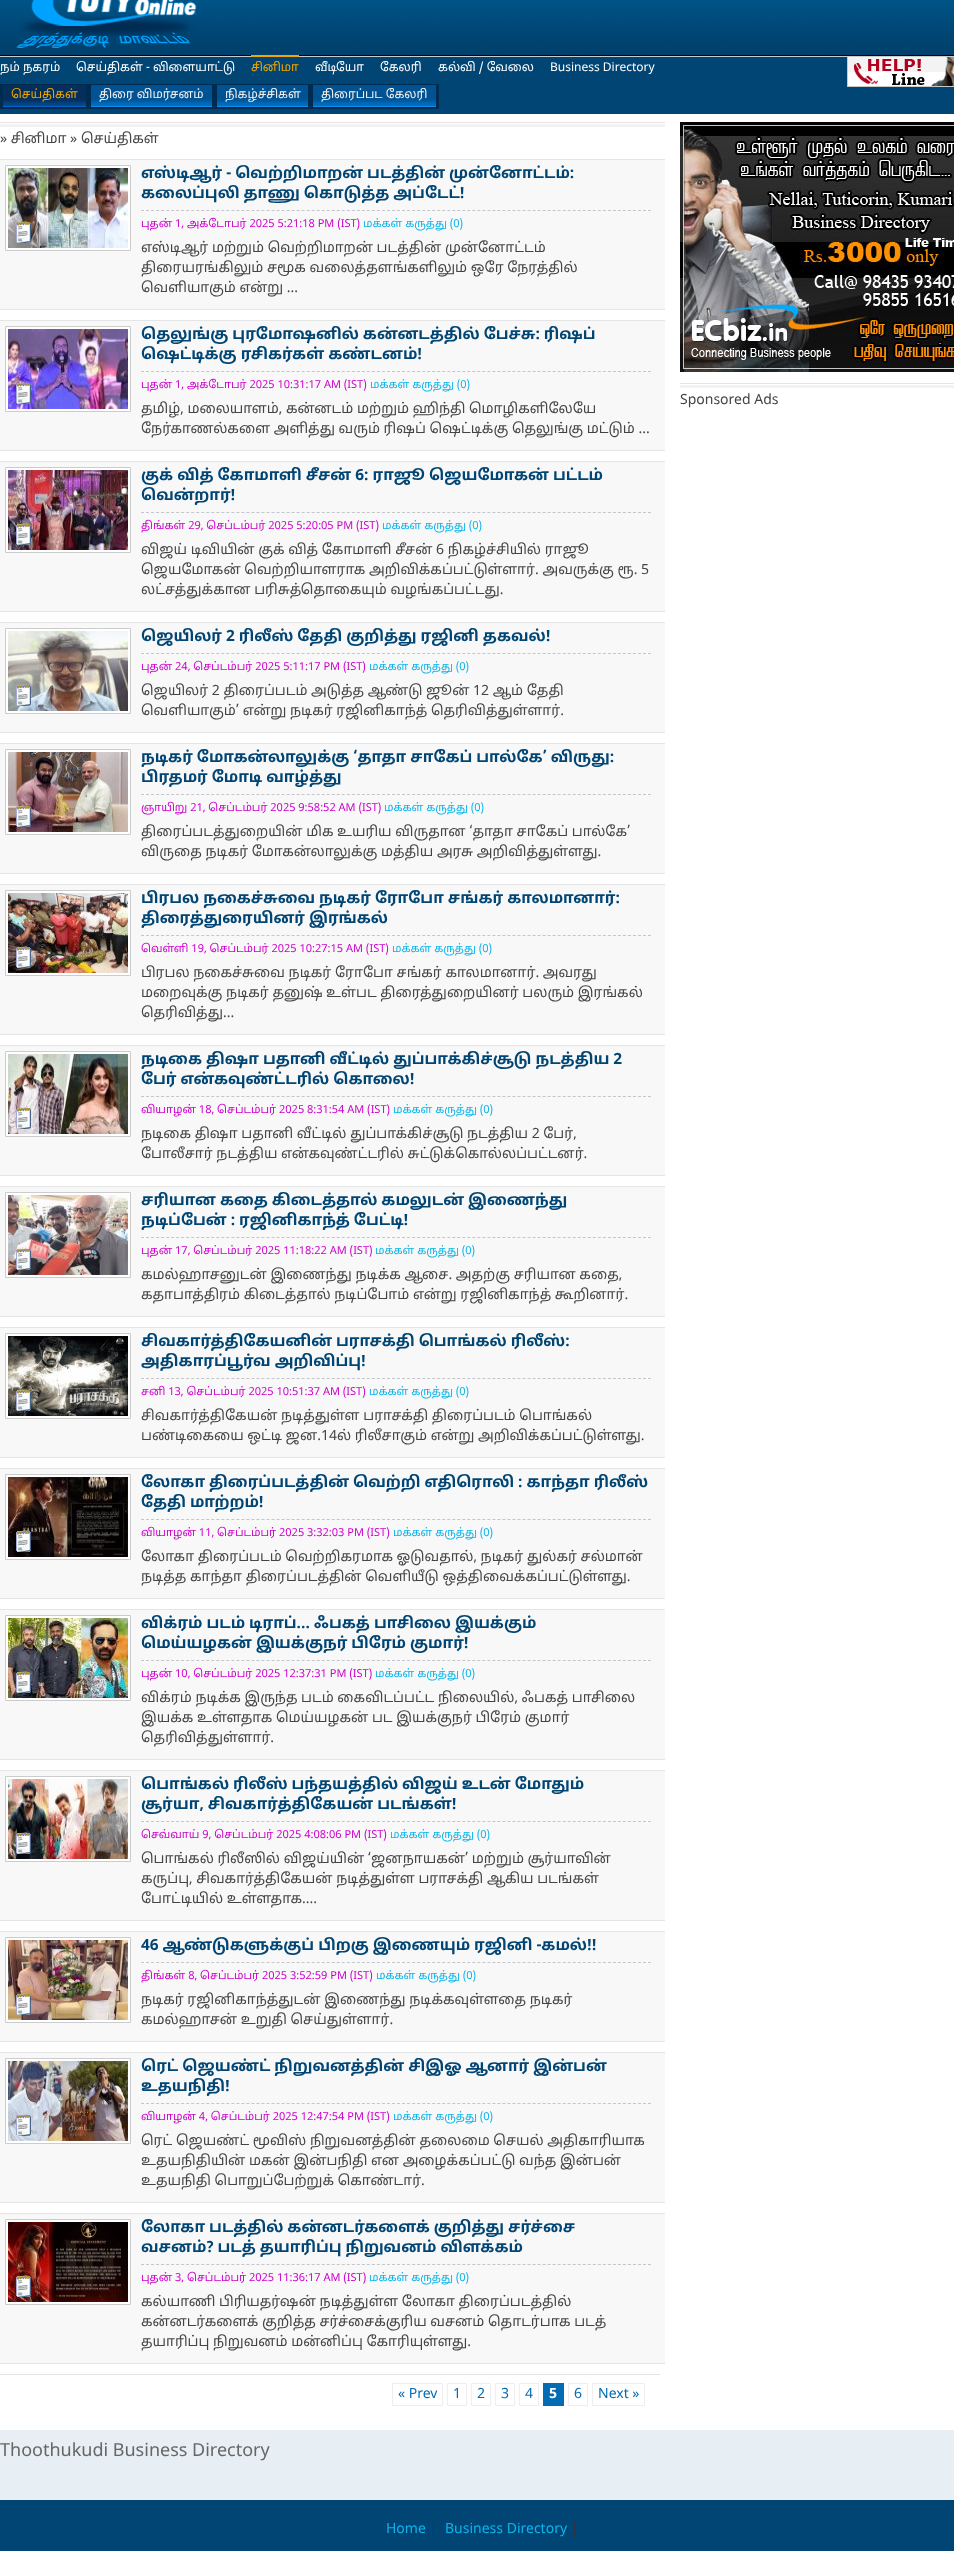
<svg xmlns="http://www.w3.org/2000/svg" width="954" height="2551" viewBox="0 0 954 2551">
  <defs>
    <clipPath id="clip1"><path d="M141 165h510v45H141z"/></clipPath>
    <clipPath id="clip2"><path d="M141 237h510v62H141z"/></clipPath>
    <clipPath id="clip3"><path d="M141 326h510v45H141z"/></clipPath>
    <clipPath id="clip4"><path d="M141 467h510v45H141z"/></clipPath>
    <clipPath id="clip5"><path d="M141 539h510v62H141z"/></clipPath>
    <clipPath id="clip6"><path d="M141 628h510v25H141z"/></clipPath>
    <clipPath id="clip7"><path d="M141 749h510v45H141z"/></clipPath>
    <clipPath id="clip8"><path d="M141 821h510v42H141z"/></clipPath>
    <clipPath id="clip9"><path d="M141 890h510v45H141z"/></clipPath>
    <clipPath id="clip10"><path d="M141 962h510v62H141z"/></clipPath>
    <clipPath id="clip11"><path d="M141 1051h510v45H141z"/></clipPath>
    <clipPath id="clip12"><path d="M141 1192h510v45H141z"/></clipPath>
    <clipPath id="clip13"><path d="M141 1333h510v45H141z"/></clipPath>
    <clipPath id="clip14"><path d="M141 1405h510v42H141z"/></clipPath>
    <clipPath id="clip15"><path d="M141 1474h510v45H141z"/></clipPath>
    <clipPath id="clip16"><path d="M141 1615h510v45H141z"/></clipPath>
    <clipPath id="clip17"><path d="M141 1687h510v62H141z"/></clipPath>
    <clipPath id="clip18"><path d="M141 1776h510v45H141z"/></clipPath>
    <clipPath id="clip19"><path d="M141 1937h510v25H141z"/></clipPath>
    <clipPath id="clip20"><path d="M141 2058h510v45H141z"/></clipPath>
    <clipPath id="clip21"><path d="M141 2219h510v45H141z"/></clipPath>
  </defs>
  <rect width="100%" height="100%" fill="#fff"/>
  <image x="0" y="0" width="954" height="114" href="img/1.png"/>
  <image x="1" y="0" width="196" height="48" href="img/2.png"/>
  <path d="M251 55h48v2H251z" fill="#f2a500"/>
  <path d="M0 84h439v25H0z" fill="#002b51"/>
  <image x="3" y="85" width="83" height="22" href="img/3.png"/>
  <image x="91" y="85" width="121" height="22" href="img/4.png"/>
  <image x="217" y="85" width="91" height="22" href="img/5.png"/>
  <image x="313" y="85" width="123" height="22" href="img/6.png"/>
  <image x="847" y="57" width="107" height="30" href="img/7.png"/>
  <path d="M0 122h665v1H0z" fill="#e5e5e5"/>
  <path d="M0 124h665v3H0z" fill="#f2f2f2"/>
  <path d="M0 160h665v149H0z" fill="#f8f8f8"/>
  <path d="M0 159h665v1H0z" fill="#e5e5e5"/>
  <path d="M0 309h665v1H0z" fill="#e5e5e5"/>
  <path d="M5.5 165.5h125v85H5.5z" fill="#fff" stroke="#ccc"/>
  <image x="8" y="168" width="120" height="80" href="img/8.png"/>
  <image x="16" y="221" width="21" height="22" href="img/9.png"/>
  <path d="M141 210.5H651" fill="none" stroke="#c5c6cb" stroke-dasharray="3 2.02"/>
  <path d="M0 321h665v129H0z" fill="#f8f8f8"/>
  <path d="M0 320h665v1H0z" fill="#e5e5e5"/>
  <path d="M0 450h665v1H0z" fill="#e5e5e5"/>
  <path d="M5.5 326.5h125v85H5.5z" fill="#fff" stroke="#ccc"/>
  <image x="8" y="329" width="120" height="80" href="img/10.png"/>
  <image x="16" y="382" width="21" height="22" href="img/11.png"/>
  <path d="M141 371.5H651" fill="none" stroke="#c5c6cb" stroke-dasharray="3 2.02"/>
  <path d="M0 462h665v149H0z" fill="#f8f8f8"/>
  <path d="M0 461h665v1H0z" fill="#e5e5e5"/>
  <path d="M0 611h665v1H0z" fill="#e5e5e5"/>
  <path d="M5.5 467.5h125v85H5.5z" fill="#fff" stroke="#ccc"/>
  <image x="8" y="470" width="120" height="80" href="img/12.png"/>
  <image x="16" y="523" width="21" height="22" href="img/13.png"/>
  <path d="M141 512.5H651" fill="none" stroke="#c5c6cb" stroke-dasharray="3 2.02"/>
  <path d="M0 623h665v109H0z" fill="#f8f8f8"/>
  <path d="M0 622h665v1H0z" fill="#e5e5e5"/>
  <path d="M0 732h665v1H0z" fill="#e5e5e5"/>
  <path d="M5.5 628.5h125v85H5.5z" fill="#fff" stroke="#ccc"/>
  <image x="8" y="631" width="120" height="80" href="img/14.png"/>
  <image x="16" y="684" width="21" height="22" href="img/15.png"/>
  <path d="M141 653.5H651" fill="none" stroke="#c5c6cb" stroke-dasharray="3 2.02"/>
  <path d="M0 744h665v129H0z" fill="#f8f8f8"/>
  <path d="M0 743h665v1H0z" fill="#e5e5e5"/>
  <path d="M0 873h665v1H0z" fill="#e5e5e5"/>
  <path d="M5.5 749.5h125v85H5.5z" fill="#fff" stroke="#ccc"/>
  <image x="8" y="752" width="120" height="80" href="img/16.png"/>
  <image x="16" y="805" width="21" height="22" href="img/17.png"/>
  <path d="M141 794.5H651" fill="none" stroke="#c5c6cb" stroke-dasharray="3 2.02"/>
  <path d="M0 885h665v149H0z" fill="#f8f8f8"/>
  <path d="M0 884h665v1H0z" fill="#e5e5e5"/>
  <path d="M0 1034h665v1H0z" fill="#e5e5e5"/>
  <path d="M5.5 890.5h125v85H5.5z" fill="#fff" stroke="#ccc"/>
  <image x="8" y="893" width="120" height="80" href="img/18.png"/>
  <image x="16" y="946" width="21" height="22" href="img/19.png"/>
  <path d="M141 935.5H651" fill="none" stroke="#c5c6cb" stroke-dasharray="3 2.02"/>
  <path d="M0 1046h665v129H0z" fill="#f8f8f8"/>
  <path d="M0 1045h665v1H0z" fill="#e5e5e5"/>
  <path d="M0 1175h665v1H0z" fill="#e5e5e5"/>
  <path d="M5.5 1051.5h125v85H5.5z" fill="#fff" stroke="#ccc"/>
  <image x="8" y="1054" width="120" height="80" href="img/20.png"/>
  <image x="16" y="1107" width="21" height="22" href="img/21.png"/>
  <path d="M141 1096.5H651" fill="none" stroke="#c5c6cb" stroke-dasharray="3 2.02"/>
  <path d="M0 1187h665v129H0z" fill="#f8f8f8"/>
  <path d="M0 1186h665v1H0z" fill="#e5e5e5"/>
  <path d="M0 1316h665v1H0z" fill="#e5e5e5"/>
  <path d="M5.5 1192.5h125v85H5.5z" fill="#fff" stroke="#ccc"/>
  <image x="8" y="1195" width="120" height="80" href="img/22.png"/>
  <image x="16" y="1248" width="21" height="22" href="img/23.png"/>
  <path d="M141 1237.5H651" fill="none" stroke="#c5c6cb" stroke-dasharray="3 2.02"/>
  <path d="M0 1328h665v129H0z" fill="#f8f8f8"/>
  <path d="M0 1327h665v1H0z" fill="#e5e5e5"/>
  <path d="M0 1457h665v1H0z" fill="#e5e5e5"/>
  <path d="M5.5 1333.5h125v85H5.5z" fill="#fff" stroke="#ccc"/>
  <image x="8" y="1336" width="120" height="80" href="img/24.png"/>
  <image x="16" y="1389" width="21" height="22" href="img/25.png"/>
  <path d="M141 1378.5H651" fill="none" stroke="#c5c6cb" stroke-dasharray="3 2.02"/>
  <path d="M0 1469h665v129H0z" fill="#f8f8f8"/>
  <path d="M0 1468h665v1H0z" fill="#e5e5e5"/>
  <path d="M0 1598h665v1H0z" fill="#e5e5e5"/>
  <path d="M5.5 1474.5h125v85H5.5z" fill="#fff" stroke="#ccc"/>
  <image x="8" y="1477" width="120" height="80" href="img/26.png"/>
  <image x="16" y="1530" width="15" height="22" href="img/27.png"/>
  <path d="M141 1519.5H651" fill="none" stroke="#c5c6cb" stroke-dasharray="3 2.02"/>
  <path d="M0 1610h665v149H0z" fill="#f8f8f8"/>
  <path d="M0 1609h665v1H0z" fill="#e5e5e5"/>
  <path d="M0 1759h665v1H0z" fill="#e5e5e5"/>
  <path d="M5.5 1615.5h125v85H5.5z" fill="#fff" stroke="#ccc"/>
  <image x="8" y="1618" width="120" height="80" href="img/28.png"/>
  <image x="16" y="1671" width="21" height="22" href="img/29.png"/>
  <path d="M141 1660.5H651" fill="none" stroke="#c5c6cb" stroke-dasharray="3 2.02"/>
  <path d="M0 1771h665v149H0z" fill="#f8f8f8"/>
  <path d="M0 1770h665v1H0z" fill="#e5e5e5"/>
  <path d="M0 1920h665v1H0z" fill="#e5e5e5"/>
  <path d="M5.5 1776.5h125v85H5.5z" fill="#fff" stroke="#ccc"/>
  <image x="8" y="1779" width="120" height="80" href="img/30.png"/>
  <image x="16" y="1832" width="21" height="22" href="img/31.png"/>
  <path d="M141 1821.5H651" fill="none" stroke="#c5c6cb" stroke-dasharray="3 2.02"/>
  <path d="M0 1932h665v109H0z" fill="#f8f8f8"/>
  <path d="M0 1931h665v1H0z" fill="#e5e5e5"/>
  <path d="M0 2041h665v1H0z" fill="#e5e5e5"/>
  <path d="M5.5 1937.5h125v85H5.5z" fill="#fff" stroke="#ccc"/>
  <image x="8" y="1940" width="120" height="80" href="img/32.png"/>
  <image x="16" y="1993" width="21" height="22" href="img/33.png"/>
  <path d="M141 1962.5H651" fill="none" stroke="#c5c6cb" stroke-dasharray="3 2.02"/>
  <path d="M0 2053h665v149H0z" fill="#f8f8f8"/>
  <path d="M0 2052h665v1H0z" fill="#e5e5e5"/>
  <path d="M0 2202h665v1H0z" fill="#e5e5e5"/>
  <path d="M5.5 2058.5h125v85H5.5z" fill="#fff" stroke="#ccc"/>
  <image x="8" y="2061" width="120" height="80" href="img/34.png"/>
  <image x="16" y="2114" width="21" height="22" href="img/35.png"/>
  <path d="M141 2103.5H651" fill="none" stroke="#c5c6cb" stroke-dasharray="3 2.02"/>
  <path d="M0 2214h665v149H0z" fill="#f8f8f8"/>
  <path d="M0 2213h665v1H0z" fill="#e5e5e5"/>
  <path d="M0 2363h665v1H0z" fill="#e5e5e5"/>
  <path d="M5.5 2219.5h125v85H5.5z" fill="#fff" stroke="#ccc"/>
  <image x="8" y="2222" width="120" height="80" href="img/36.png"/>
  <image x="16" y="2275" width="21" height="22" href="img/37.png"/>
  <path d="M141 2264.5H651" fill="none" stroke="#c5c6cb" stroke-dasharray="3 2.02"/>
  <path d="M0 2374h660v1H0z" fill="#e5e5e5"/>
  <path d="M392.5 2383.5h50v22H392.5z" fill="none" stroke="#eee"/>
  <path d="M447.5 2383.5h19v22H447.5z" fill="none" stroke="#eee"/>
  <path d="M471.5 2383.5h19v22H471.5z" fill="none" stroke="#eee"/>
  <path d="M495.5 2383.5h19v22H495.5z" fill="none" stroke="#eee"/>
  <path d="M519.5 2383.5h19v22H519.5z" fill="none" stroke="#eee"/>
  <path d="M543 2383h21v23H543z" fill="#036cb4"/>
  <path d="M568.5 2383.5h19v22H568.5z" fill="none" stroke="#eee"/>
  <path d="M592.5 2383.5h52v22H592.5z" fill="none" stroke="#eee"/>
  <image x="680" y="122" width="274" height="250" href="img/38.png"/>
  <path d="M680 383h274v1H680z" fill="#e5e5e5"/>
  <path d="M680 385h274v3H680z" fill="#f2f2f2"/>
  <path d="M0 2430h954v70H0z" fill="#e7eff5"/>
  <path d="M0 2500h954v51H0z" fill="#004574"/>
  <path d="M433 2521h1v17H433z" fill="#2f313f"/>
  <path d="M574 2521h1v17H574z" fill="#2f313f"/>
  <g font-family="Noto Sans Tamil" font-size="12" fill="#f2a500">
    <text x="251" y="71">சினிமா</text>
    <text x="11" y="98">செய்திகள்</text>
  </g>
  <g font-family="Noto Sans Tamil" font-size="12" fill="#f2f2f2">
    <text x="99" y="98">திரை விமர்சனம்</text>
    <text x="225" y="98">நிகழ்ச்சிகள்</text>
    <text x="321" y="98">திரைப்பட கேலரி</text>
  </g>
  <g font-family="Noto Sans Tamil" font-size="12" fill="#fff">
    <text x="0" y="71">நம் நகரம்</text>
    <text x="76" y="71">செய்திகள் - விளையாட்டு</text>
    <text x="315" y="71">வீடியோ</text>
    <text x="380" y="71">கேலரி</text>
    <text x="438" y="71">கல்வி / வேலை</text>
    <text x="550" y="71">Business Directory</text>
  </g>
  <text x="0" y="143" font-family="Noto Sans Tamil" font-size="14" fill="#444">» சினிமா » செய்திகள்</text>
  <g clip-path="url(#clip1)">
    <text x="141" y="178" font-family="Noto Sans Tamil" font-size="15.4" font-weight="bold" fill="#004574">எஸ்டிஆர் - வெற்றிமாறன் படத்தின் முன்னோட்டம்:</text>
  </g>
  <text x="141" y="198" font-family="Noto Sans Tamil" font-size="15.4" font-weight="bold" fill="#004574">கலைப்புலி தாணு கொடுத்த அப்டேட்!</text>
  <text x="141" y="227" font-family="Noto Sans Tamil" font-size="11" fill="#c0c">புதன் 1, அக்டோபர் 2025 5:21:18 PM (IST)</text>
  <text x="363" y="227" font-family="Noto Sans Tamil" font-size="11" fill="#0cb4ea">மக்கள் கருத்து (0)</text>
  <text x="141" y="252" font-family="Noto Sans Tamil" font-size="14" fill="#444">எஸ்டிஆர் மற்றும் வெற்றிமாறன் படத்தின் முன்னோட்டம்</text>
  <g clip-path="url(#clip2)">
    <text x="141" y="272" font-family="Noto Sans Tamil" font-size="14" fill="#444">திரையரங்கிலும் சமூக வலைத்தளங்களிலும் ஒரே நேரத்தில்</text>
  </g>
  <text x="141" y="292" font-family="Noto Sans Tamil" font-size="14" fill="#444">வெளியாகும் என்று ...</text>
  <g clip-path="url(#clip3)">
    <text x="141" y="339" font-family="Noto Sans Tamil" font-size="15.4" font-weight="bold" fill="#004574">தெலுங்கு புரமோஷனில் கன்னடத்தில் பேச்சு: ரிஷப்</text>
  </g>
  <text x="141" y="359" font-family="Noto Sans Tamil" font-size="15.4" font-weight="bold" fill="#004574">ஷெட்டிக்கு ரசிகர்கள் கண்டனம்!</text>
  <text x="141" y="388" font-family="Noto Sans Tamil" font-size="11" fill="#c0c">புதன் 1, அக்டோபர் 2025 10:31:17 AM (IST)</text>
  <text x="370" y="388" font-family="Noto Sans Tamil" font-size="11" fill="#0cb4ea">மக்கள் கருத்து (0)</text>
  <g font-family="Noto Sans Tamil" font-size="14" fill="#444">
    <text x="141" y="413">தமிழ், மலையாளம், கன்னடம் மற்றும் ஹிந்தி மொழிகளிலேயே</text>
    <text x="141" y="433">நேர்காணல்களை அளித்து வரும் ரிஷப் ஷெட்டிக்கு தெலுங்கு மட்டும் ...</text>
  </g>
  <g clip-path="url(#clip4)">
    <text x="141" y="480" font-family="Noto Sans Tamil" font-size="15.4" font-weight="bold" fill="#004574">குக் வித் கோமாளி சீசன் 6: ராஜூ ஜெயமோகன் பட்டம்</text>
  </g>
  <text x="141" y="500" font-family="Noto Sans Tamil" font-size="15.4" font-weight="bold" fill="#004574">வென்றார்!</text>
  <text x="141" y="529" font-family="Noto Sans Tamil" font-size="11" fill="#c0c">திங்கள் 29, செப்டம்பர் 2025 5:20:05 PM (IST)</text>
  <text x="382" y="529" font-family="Noto Sans Tamil" font-size="11" fill="#0cb4ea">மக்கள் கருத்து (0)</text>
  <g clip-path="url(#clip5)">
    <text x="141" y="554" font-family="Noto Sans Tamil" font-size="14" fill="#444">விஜய் டிவியின் குக் வித் கோமாளி சீசன் 6 நிகழ்ச்சியில் ராஜூ</text>
  </g>
  <g font-family="Noto Sans Tamil" font-size="14" fill="#444">
    <text x="141" y="574">ஜெயமோகன் வெற்றியாளராக அறிவிக்கப்பட்டுள்ளார். அவருக்கு ரூ. 5</text>
    <text x="141" y="594">லட்சத்துக்கான பரிசுத்தொகையும் வழங்கப்பட்டது.</text>
  </g>
  <g clip-path="url(#clip6)">
    <text x="141" y="641" font-family="Noto Sans Tamil" font-size="15.4" font-weight="bold" fill="#004574">ஜெயிலர் 2 ரிலீஸ் தேதி குறித்து ரஜினி தகவல்!</text>
  </g>
  <text x="141" y="670" font-family="Noto Sans Tamil" font-size="11" fill="#c0c">புதன் 24, செப்டம்பர் 2025 5:11:17 PM (IST)</text>
  <text x="369" y="670" font-family="Noto Sans Tamil" font-size="11" fill="#0cb4ea">மக்கள் கருத்து (0)</text>
  <g font-family="Noto Sans Tamil" font-size="14" fill="#444">
    <text x="141" y="695">ஜெயிலர் 2 திரைப்படம் அடுத்த ஆண்டு ஜூன் 12 ஆம் தேதி</text>
    <text x="141" y="715">வெளியாகும்’ என்று நடிகர் ரஜினிகாந்த் தெரிவித்துள்ளார்.</text>
  </g>
  <g clip-path="url(#clip7)">
    <g font-family="Noto Sans Tamil" font-size="15.4" font-weight="bold" fill="#004574">
      <text x="141" y="762">நடிகர் மோகன்லாலுக்கு ‘தாதா சாகேப் பால்கே’ விருது:</text>
      <text x="141" y="782">பிரதமர் மோடி வாழ்த்து</text>
    </g>
  </g>
  <text x="141" y="811" font-family="Noto Sans Tamil" font-size="11" fill="#c0c">ஞாயிறு 21, செப்டம்பர் 2025 9:58:52 AM (IST)</text>
  <text x="384" y="811" font-family="Noto Sans Tamil" font-size="11" fill="#0cb4ea">மக்கள் கருத்து (0)</text>
  <g clip-path="url(#clip8)">
    <g font-family="Noto Sans Tamil" font-size="14" fill="#444">
      <text x="141" y="836">திரைப்படத்துறையின் மிக உயரிய விருதான ‘தாதா சாகேப் பால்கே’</text>
      <text x="141" y="856">விருதை நடிகர் மோகன்லாலுக்கு மத்திய அரசு அறிவித்துள்ளது.</text>
    </g>
  </g>
  <g clip-path="url(#clip9)">
    <g font-family="Noto Sans Tamil" font-size="15.4" font-weight="bold" fill="#004574">
      <text x="141" y="903">பிரபல நகைச்சுவை நடிகர் ரோபோ சங்கர் காலமானார்:</text>
      <text x="141" y="923">திரைத்துரையினர் இரங்கல்</text>
    </g>
  </g>
  <text x="141" y="952" font-family="Noto Sans Tamil" font-size="11" fill="#c0c">வெள்ளி 19, செப்டம்பர் 2025 10:27:15 AM (IST)</text>
  <text x="392" y="952" font-family="Noto Sans Tamil" font-size="11" fill="#0cb4ea">மக்கள் கருத்து (0)</text>
  <g clip-path="url(#clip10)">
    <text x="141" y="977" font-family="Noto Sans Tamil" font-size="14" fill="#444">பிரபல நகைச்சுவை நடிகர் ரோபோ சங்கர் காலமானார். அவரது</text>
  </g>
  <g font-family="Noto Sans Tamil" font-size="14" fill="#444">
    <text x="141" y="997">மறைவுக்கு நடிகர் தனுஷ் உள்பட திரைத்துறையினர் பலரும் இரங்கல்</text>
    <text x="141" y="1017">தெரிவித்து...</text>
  </g>
  <g clip-path="url(#clip11)">
    <text x="141" y="1064" font-family="Noto Sans Tamil" font-size="15.4" font-weight="bold" fill="#004574">நடிகை திஷா பதானி வீட்டில் துப்பாக்கிச்சூடு நடத்திய 2</text>
  </g>
  <text x="141" y="1084" font-family="Noto Sans Tamil" font-size="15.4" font-weight="bold" fill="#004574">பேர் என்கவுண்ட்டரில் கொலை!</text>
  <text x="141" y="1113" font-family="Noto Sans Tamil" font-size="11" fill="#c0c">வியாழன் 18, செப்டம்பர் 2025 8:31:54 AM (IST)</text>
  <text x="393" y="1113" font-family="Noto Sans Tamil" font-size="11" fill="#0cb4ea">மக்கள் கருத்து (0)</text>
  <g font-family="Noto Sans Tamil" font-size="14" fill="#444">
    <text x="141" y="1138">நடிகை திஷா பதானி வீட்டில் துப்பாக்கிச்சூடு நடத்திய 2 பேர்,</text>
    <text x="141" y="1158">போலீசார் நடத்திய என்கவுண்ட்டரில் சுட்டுக்கொல்லப்பட்டனர்.</text>
  </g>
  <g clip-path="url(#clip12)">
    <text x="141" y="1205" font-family="Noto Sans Tamil" font-size="15.4" font-weight="bold" fill="#004574">சரியான கதை கிடைத்தால் கமலுடன் இணைந்து</text>
  </g>
  <text x="141" y="1225" font-family="Noto Sans Tamil" font-size="15.4" font-weight="bold" fill="#004574">நடிப்பேன் : ரஜினிகாந்த் பேட்டி!</text>
  <text x="141" y="1254" font-family="Noto Sans Tamil" font-size="11" fill="#c0c">புதன் 17, செப்டம்பர் 2025 11:18:22 AM (IST)</text>
  <text x="375" y="1254" font-family="Noto Sans Tamil" font-size="11" fill="#0cb4ea">மக்கள் கருத்து (0)</text>
  <g font-family="Noto Sans Tamil" font-size="14" fill="#444">
    <text x="141" y="1279">கமல்ஹாசனுடன் இணைந்து நடிக்க ஆசை. அதற்கு சரியான கதை,</text>
    <text x="141" y="1299">கதாபாத்திரம் கிடைத்தால் நடிப்போம் என்று ரஜினிகாந்த் கூறினார்.</text>
  </g>
  <g clip-path="url(#clip13)">
    <text x="141" y="1346" font-family="Noto Sans Tamil" font-size="15.4" font-weight="bold" fill="#004574">சிவகார்த்திகேயனின் பராசக்தி பொங்கல் ரிலீஸ்:</text>
  </g>
  <text x="141" y="1366" font-family="Noto Sans Tamil" font-size="15.4" font-weight="bold" fill="#004574">அதிகாரப்பூர்வ அறிவிப்பு!</text>
  <text x="141" y="1395" font-family="Noto Sans Tamil" font-size="11" fill="#c0c">சனி 13, செப்டம்பர் 2025 10:51:37 AM (IST)</text>
  <text x="369" y="1395" font-family="Noto Sans Tamil" font-size="11" fill="#0cb4ea">மக்கள் கருத்து (0)</text>
  <g clip-path="url(#clip14)">
    <text x="141" y="1420" font-family="Noto Sans Tamil" font-size="14" fill="#444">சிவகார்த்திகேயன் நடித்துள்ள பராசக்தி திரைப்படம் பொங்கல்</text>
  </g>
  <text x="141" y="1440" font-family="Noto Sans Tamil" font-size="14" fill="#444">பண்டிகையை ஒட்டி ஜன.14ல் ரிலீசாகும் என்று அறிவிக்கப்பட்டுள்ளது.</text>
  <g clip-path="url(#clip15)">
    <text x="141" y="1487" font-family="Noto Sans Tamil" font-size="15.4" font-weight="bold" fill="#004574">லோகா திரைப்படத்தின் வெற்றி எதிரொலி : காந்தா ரிலீஸ்</text>
  </g>
  <text x="141" y="1507" font-family="Noto Sans Tamil" font-size="15.4" font-weight="bold" fill="#004574">தேதி மாற்றம்!</text>
  <text x="141" y="1536" font-family="Noto Sans Tamil" font-size="11" fill="#c0c">வியாழன் 11, செப்டம்பர் 2025 3:32:03 PM (IST)</text>
  <text x="393" y="1536" font-family="Noto Sans Tamil" font-size="11" fill="#0cb4ea">மக்கள் கருத்து (0)</text>
  <g font-family="Noto Sans Tamil" font-size="14" fill="#444">
    <text x="141" y="1561">லோகா திரைப்படம் வெற்றிகரமாக ஓடுவதால், நடிகர் துல்கர் சல்மான்</text>
    <text x="141" y="1581">நடித்த காந்தா திரைப்படத்தின் வெளியீடு ஒத்திவைக்கப்பட்டுள்ளது.</text>
  </g>
  <g clip-path="url(#clip16)">
    <text x="141" y="1628" font-family="Noto Sans Tamil" font-size="15.4" font-weight="bold" fill="#004574">விக்ரம் படம் டிராப்... ஃபகத் பாசிலை இயக்கும்</text>
  </g>
  <text x="141" y="1648" font-family="Noto Sans Tamil" font-size="15.4" font-weight="bold" fill="#004574">மெய்யழகன் இயக்குநர் பிரேம் குமார்!</text>
  <text x="141" y="1677" font-family="Noto Sans Tamil" font-size="11" fill="#c0c">புதன் 10, செப்டம்பர் 2025 12:37:31 PM (IST)</text>
  <text x="375" y="1677" font-family="Noto Sans Tamil" font-size="11" fill="#0cb4ea">மக்கள் கருத்து (0)</text>
  <g clip-path="url(#clip17)">
    <text x="141" y="1702" font-family="Noto Sans Tamil" font-size="14" fill="#444">விக்ரம் நடிக்க இருந்த படம் கைவிடப்பட்ட நிலையில், ஃபகத் பாசிலை</text>
  </g>
  <g font-family="Noto Sans Tamil" font-size="14" fill="#444">
    <text x="141" y="1722">இயக்க உள்ளதாக மெய்யழகன் பட இயக்குநர் பிரேம் குமார்</text>
    <text x="141" y="1742">தெரிவித்துள்ளார்.</text>
  </g>
  <g clip-path="url(#clip18)">
    <text x="141" y="1789" font-family="Noto Sans Tamil" font-size="15.4" font-weight="bold" fill="#004574">பொங்கல் ரிலீஸ் பந்தயத்தில் விஜய் உடன் மோதும்</text>
  </g>
  <text x="141" y="1809" font-family="Noto Sans Tamil" font-size="15.4" font-weight="bold" fill="#004574">சூர்யா, சிவகார்த்திகேயன் படங்கள்!</text>
  <text x="141" y="1838" font-family="Noto Sans Tamil" font-size="11" fill="#c0c">செவ்வாய் 9, செப்டம்பர் 2025 4:08:06 PM (IST)</text>
  <text x="390" y="1838" font-family="Noto Sans Tamil" font-size="11" fill="#0cb4ea">மக்கள் கருத்து (0)</text>
  <g font-family="Noto Sans Tamil" font-size="14" fill="#444">
    <text x="141" y="1863">பொங்கல் ரிலீஸில் விஜய்யின் ‘ஜனநாயகன்’ மற்றும் சூர்யாவின்</text>
    <text x="141" y="1883">கருப்பு, சிவகார்த்திகேயன் நடித்துள்ள பராசக்தி ஆகிய படங்கள்</text>
    <text x="141" y="1903">போட்டியில் உள்ளதாக....</text>
  </g>
  <g clip-path="url(#clip19)">
    <text x="141" y="1950" font-family="Noto Sans Tamil" font-size="15.4" font-weight="bold" fill="#004574">46 ஆண்டுகளுக்குப் பிறகு இணையும் ரஜினி -கமல்!!</text>
  </g>
  <text x="141" y="1979" font-family="Noto Sans Tamil" font-size="11" fill="#c0c">திங்கள் 8, செப்டம்பர் 2025 3:52:59 PM (IST)</text>
  <text x="376" y="1979" font-family="Noto Sans Tamil" font-size="11" fill="#0cb4ea">மக்கள் கருத்து (0)</text>
  <g font-family="Noto Sans Tamil" font-size="14" fill="#444">
    <text x="141" y="2004">நடிகர் ரஜினிகாந்த்துடன் இணைந்து நடிக்கவுள்ளதை நடிகர்</text>
    <text x="141" y="2024">கமல்ஹாசன் உறுதி செய்துள்ளார்.</text>
  </g>
  <g clip-path="url(#clip20)">
    <text x="141" y="2071" font-family="Noto Sans Tamil" font-size="15.4" font-weight="bold" fill="#004574">ரெட் ஜெயண்ட் நிறுவனத்தின் சிஇஓ ஆனார் இன்பன்</text>
  </g>
  <text x="141" y="2091" font-family="Noto Sans Tamil" font-size="15.4" font-weight="bold" fill="#004574">உதயநிதி!</text>
  <text x="141" y="2120" font-family="Noto Sans Tamil" font-size="11" fill="#c0c">வியாழன் 4, செப்டம்பர் 2025 12:47:54 PM (IST)</text>
  <text x="393" y="2120" font-family="Noto Sans Tamil" font-size="11" fill="#0cb4ea">மக்கள் கருத்து (0)</text>
  <g font-family="Noto Sans Tamil" font-size="14" fill="#444">
    <text x="141" y="2145">ரெட் ஜெயண்ட் மூவிஸ் நிறுவனத்தின் தலைமை செயல் அதிகாரியாக</text>
    <text x="141" y="2165">உதயநிதியின் மகன் இன்பநிதி என அழைக்கப்பட்டு வந்த இன்பன்</text>
    <text x="141" y="2185">உதயநிதி பொறுப்பேற்றுக் கொண்டார்.</text>
  </g>
  <g clip-path="url(#clip21)">
    <text x="141" y="2232" font-family="Noto Sans Tamil" font-size="15.4" font-weight="bold" fill="#004574">லோகா படத்தில் கன்னடர்களைக் குறித்து சர்ச்சை</text>
  </g>
  <text x="141" y="2252" font-family="Noto Sans Tamil" font-size="15.4" font-weight="bold" fill="#004574">வசனம்? படத் தயாரிப்பு நிறுவனம் விளக்கம்</text>
  <text x="141" y="2281" font-family="Noto Sans Tamil" font-size="11" fill="#c0c">புதன் 3, செப்டம்பர் 2025 11:36:17 AM (IST)</text>
  <text x="369" y="2281" font-family="Noto Sans Tamil" font-size="11" fill="#0cb4ea">மக்கள் கருத்து (0)</text>
  <g font-family="Noto Sans Tamil" font-size="14" fill="#444">
    <text x="141" y="2306">கல்யாணி பிரியதர்ஷன் நடித்துள்ள லோகா திரைப்படத்தில்</text>
    <text x="141" y="2326">கன்னடர்களைக் குறித்த சர்ச்சைக்குரிய வசனம் தொடர்பாக படத்</text>
    <text x="141" y="2346">தயாரிப்பு நிறுவனம் மன்னிப்பு கோரியுள்ளது.</text>
  </g>
  <g font-family="Noto Sans Tamil" font-size="14" fill="#036cb4">
    <text x="398" y="2398">« Prev</text>
    <text x="453" y="2398">1</text>
    <text x="477" y="2398">2</text>
    <text x="501" y="2398">3</text>
    <text x="525" y="2398">4</text>
  </g>
  <text x="549" y="2398" font-family="Noto Sans Tamil" font-size="14" font-weight="bold" fill="#fff">5</text>
  <g font-family="Noto Sans Tamil" font-size="14" fill="#036cb4">
    <text x="574" y="2398">6</text>
    <text x="598" y="2398">Next »</text>
  </g>
  <text x="680" y="404" font-family="Noto Sans Tamil" font-size="14" fill="#444">Sponsored Ads</text>
  <text x="0" y="2456" font-family="Noto Sans Tamil" font-size="18" fill="#666">Thoothukudi Business Directory</text>
  <g font-family="Noto Sans Tamil" font-size="14" fill="#0cb4ea">
    <text x="386" y="2533">Home</text>
    <text x="445" y="2533">Business Directory</text>
  </g>
</svg>
